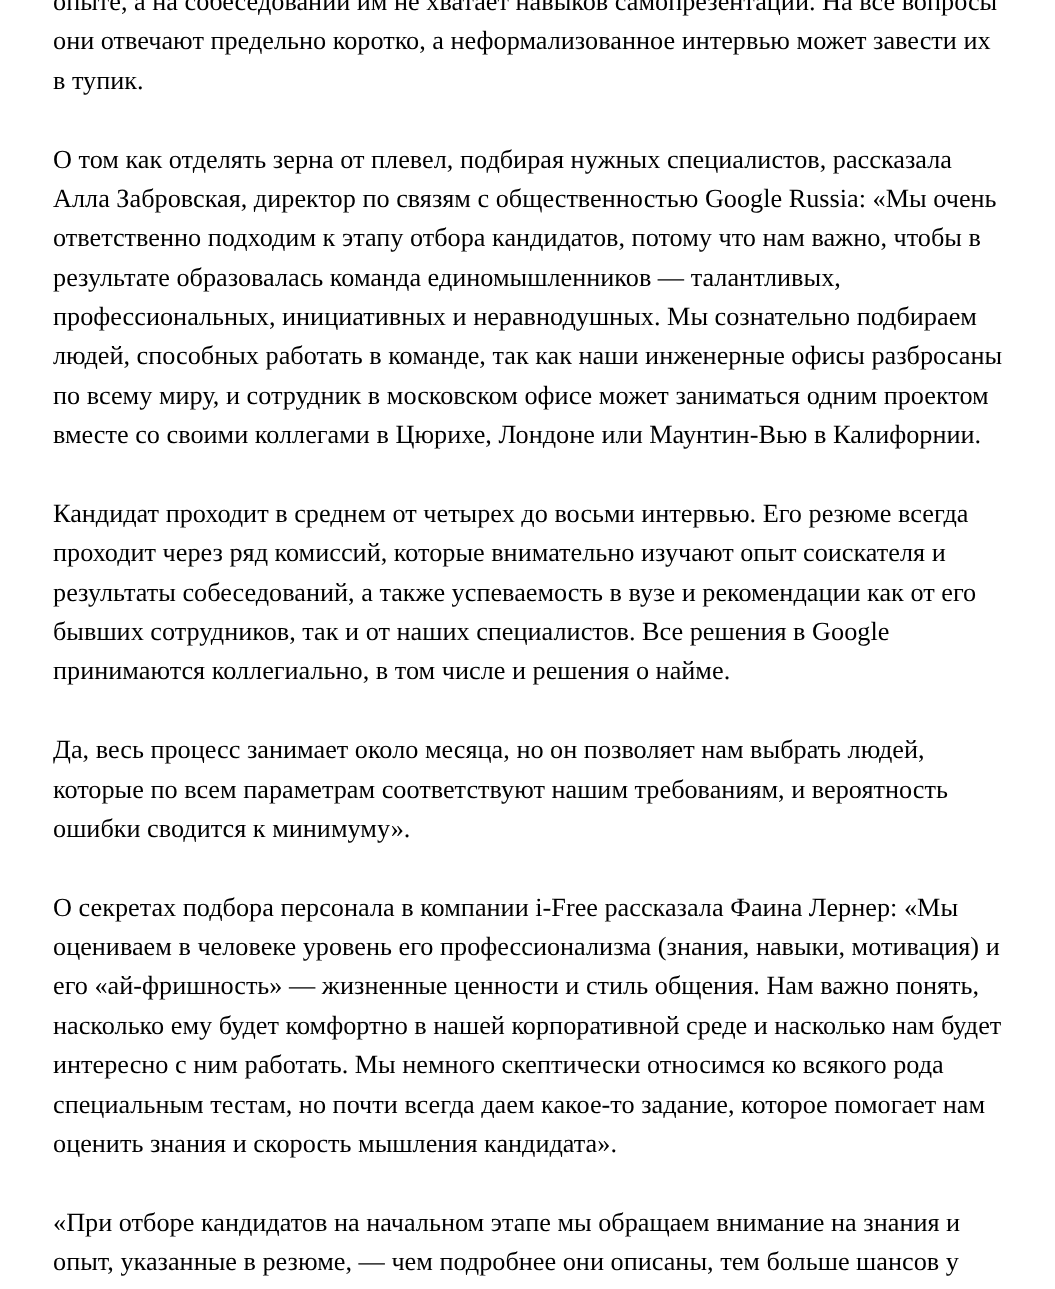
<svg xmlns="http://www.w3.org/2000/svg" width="1055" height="1289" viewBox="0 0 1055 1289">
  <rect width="100%" height="100%" fill="#fff"/>
  <g font-family="Liberation Serif" font-size="26.25" fill="#000">
    <text x="53" y="10">опыте, а на собеседовании им не хватает навыков самопрезентации. На все вопросы</text>
    <text x="53" y="49">они отвечают предельно коротко, а неформализованное интервью может завести их</text>
    <text x="53" y="89">в тупик.</text>
    <text x="53" y="168">О том как отделять зерна от плевел, подбирая нужных специалистов, рассказала</text>
    <text x="53" y="207">Алла Забровская, директор по связям с общественностью Google Russia: «Мы очень</text>
    <text x="53" y="246">ответственно подходим к этапу отбора кандидатов, потому что нам важно, чтобы в</text>
    <text x="53" y="286">результате образовалась команда единомышленников — талантливых,</text>
    <text x="53" y="325">профессиональных, инициативных и неравнодушных. Мы сознательно подбираем</text>
    <text x="53" y="364">людей, способных работать в команде, так как наши инженерные офисы разбросаны</text>
    <text x="53" y="404">по всему миру, и сотрудник в московском офисе может заниматься одним проектом</text>
    <text x="53" y="443">вместе со своими коллегами в Цюрихе, Лондоне или Маунтин-Вью в Калифорнии.</text>
    <text x="53" y="522">Кандидат проходит в среднем от четырех до восьми интервью. Его резюме всегда</text>
    <text x="53" y="561">проходит через ряд комиссий, которые внимательно изучают опыт соискателя и</text>
    <text x="53" y="601">результаты собеседований, а также успеваемость в вузе и рекомендации как от его</text>
    <text x="53" y="640">бывших сотрудников, так и от наших специалистов. Все решения в Google</text>
    <text x="53" y="679">принимаются коллегиально, в том числе и решения о найме.</text>
    <text x="53" y="758">Да, весь процесс занимает около месяца, но он позволяет нам выбрать людей,</text>
    <text x="53" y="798">которые по всем параметрам соответствуют нашим требованиям, и вероятность</text>
    <text x="53" y="837">ошибки сводится к минимуму».</text>
    <text x="53" y="916">О секретах подбора персонала в компании i-Free рассказала Фаина Лернер: «Мы</text>
    <text x="53" y="955">оцениваем в человеке уровень его профессионализма (знания, навыки, мотивация) и</text>
    <text x="53" y="994">его «ай-фришность» — жизненные ценности и стиль общения. Нам важно понять,</text>
    <text x="53" y="1034">насколько ему будет комфортно в нашей корпоративной среде и насколько нам будет</text>
    <text x="53" y="1073">интересно с ним работать. Мы немного скептически относимся ко всякого рода</text>
    <text x="53" y="1113">специальным тестам, но почти всегда даем какое-то задание, которое помогает нам</text>
    <text x="53" y="1152">оценить знания и скорость мышления кандидата».</text>
    <text x="53" y="1231">«При отборе кандидатов на начальном этапе мы обращаем внимание на знания и</text>
    <text x="53" y="1270">опыт, указанные в резюме, — чем подробнее они описаны, тем больше шансов у</text>
  </g>
</svg>
